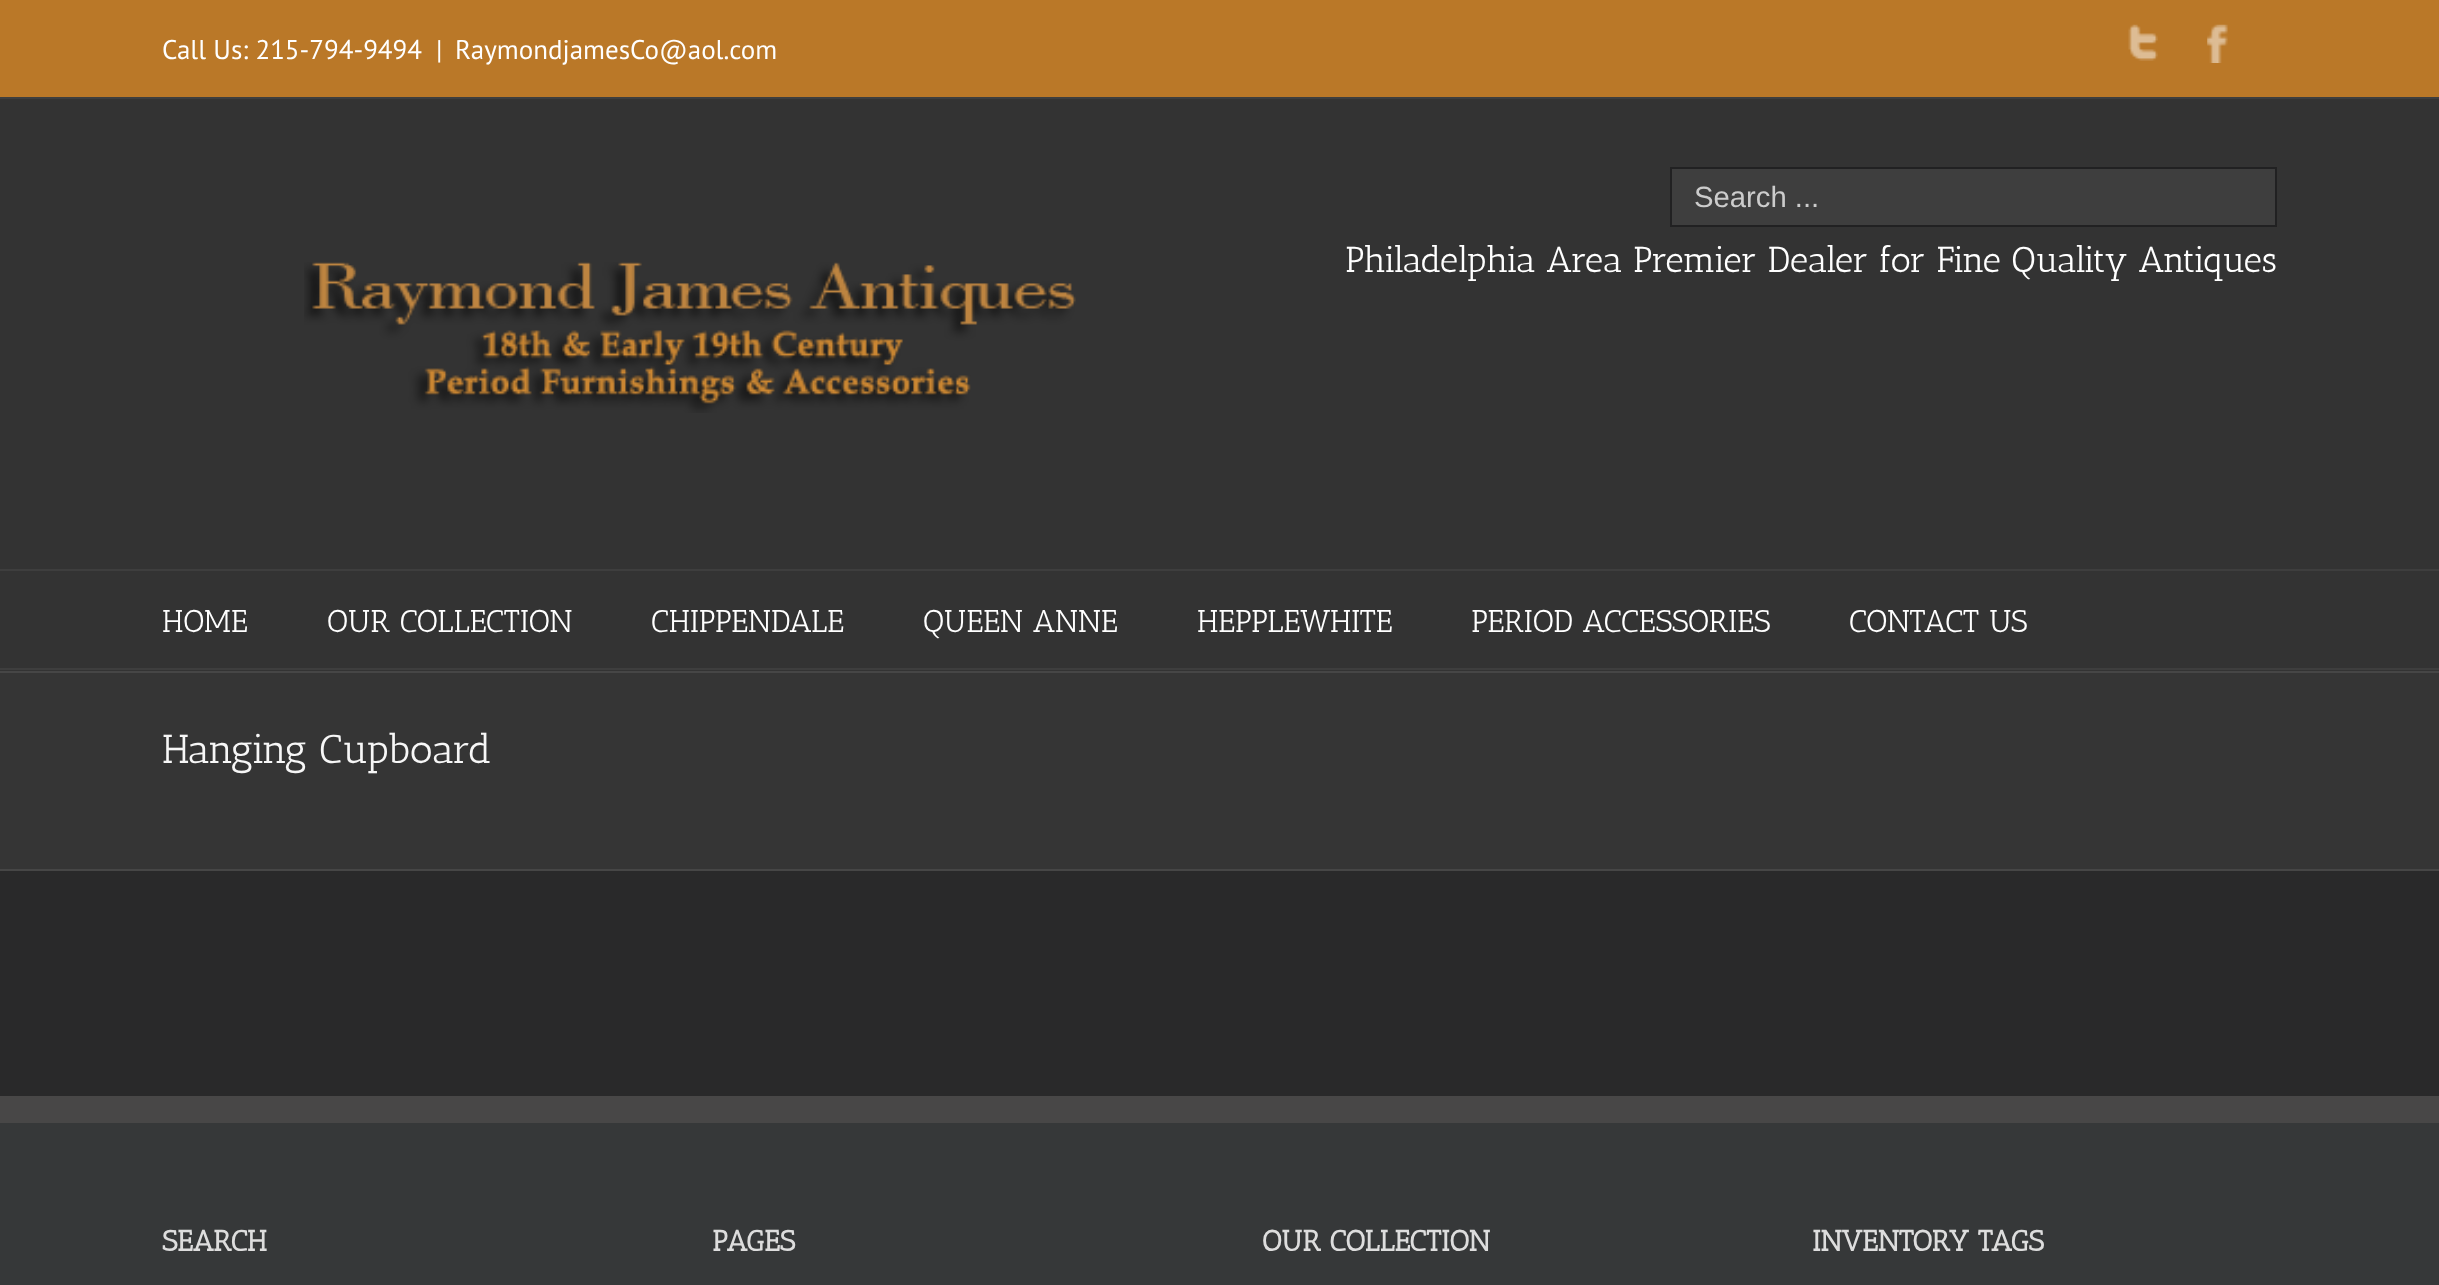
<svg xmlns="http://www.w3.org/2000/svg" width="2439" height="1285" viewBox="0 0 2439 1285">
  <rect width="100%" height="100%" fill="#29292a"/>
  <path d="M0 0h2439v97H0z" fill="#ba7828"/>
  <path d="M0 97h2439v2H0z" fill="#3e3e3e"/>
  <image x="2128" y="24" width="30" height="37" href="img/1.png"/>
  <image x="2207" y="24" width="21" height="39" href="img/2.png"/>
  <path d="M0 99h2439v572H0z" fill="#333"/>
  <path d="M0 569h2439v2H0z" fill="#3e3e3e"/>
  <path d="M1671 168h605v58H1671z" fill="#3e3e3e" stroke="#212122" stroke-width="2"/>
  <image x="304" y="262" width="772" height="151" href="img/3.png"/>
  <path d="M0 668h2439v2H0z" fill="#3e3e3e"/>
  <path d="M0 673h2439v196H0z" fill="#353535"/>
  <path d="M0 671h2439v2H0z" fill="#464646"/>
  <path d="M0 869h2439v2H0z" fill="#464646"/>
  <path d="M0 1123h2439v162H0z" fill="#363839"/>
  <path d="M0 1096h2439v27H0z" fill="#484747"/>
  <g font-family="PT Sans" font-size="27" fill="#fff">
    <text x="162" y="59">Call Us: 215-794-9494</text>
    <text x="436" y="59">|</text>
    <text x="455" y="59">RaymondjamesCo@aol.com</text>
  </g>
  <text x="1694" y="207" font-family="Liberation Sans" font-size="29.25" fill="#ccc">Search ...</text>
  <text x="1345" y="272" font-family="Antic Slab" font-size="36" fill="#fff">Philadelphia Area Premier Dealer for Fine Quality Antiques</text>
  <g font-family="Antic Slab" font-size="31.5" fill="#fff">
    <text x="162" y="632">HOME</text>
    <text x="327" y="632">OUR COLLECTION</text>
    <text x="651" y="632">CHIPPENDALE</text>
    <text x="923" y="632">QUEEN ANNE</text>
    <text x="1197" y="632">HEPPLEWHITE</text>
    <text x="1471" y="632">PERIOD ACCESSORIES</text>
    <text x="1849" y="632">CONTACT US</text>
  </g>
  <text x="162" y="763" font-family="Antic Slab" font-size="40.5" fill="#f7f7f7">Hanging Cupboard</text>
  <g font-family="Antic Slab" font-size="29.25" font-weight="bold" fill="#ddd">
    <text x="162" y="1251">SEARCH</text>
    <text x="712" y="1251">PAGES</text>
    <text x="1262" y="1251">OUR COLLECTION</text>
    <text x="1812" y="1251">INVENTORY TAGS</text>
  </g>
</svg>
